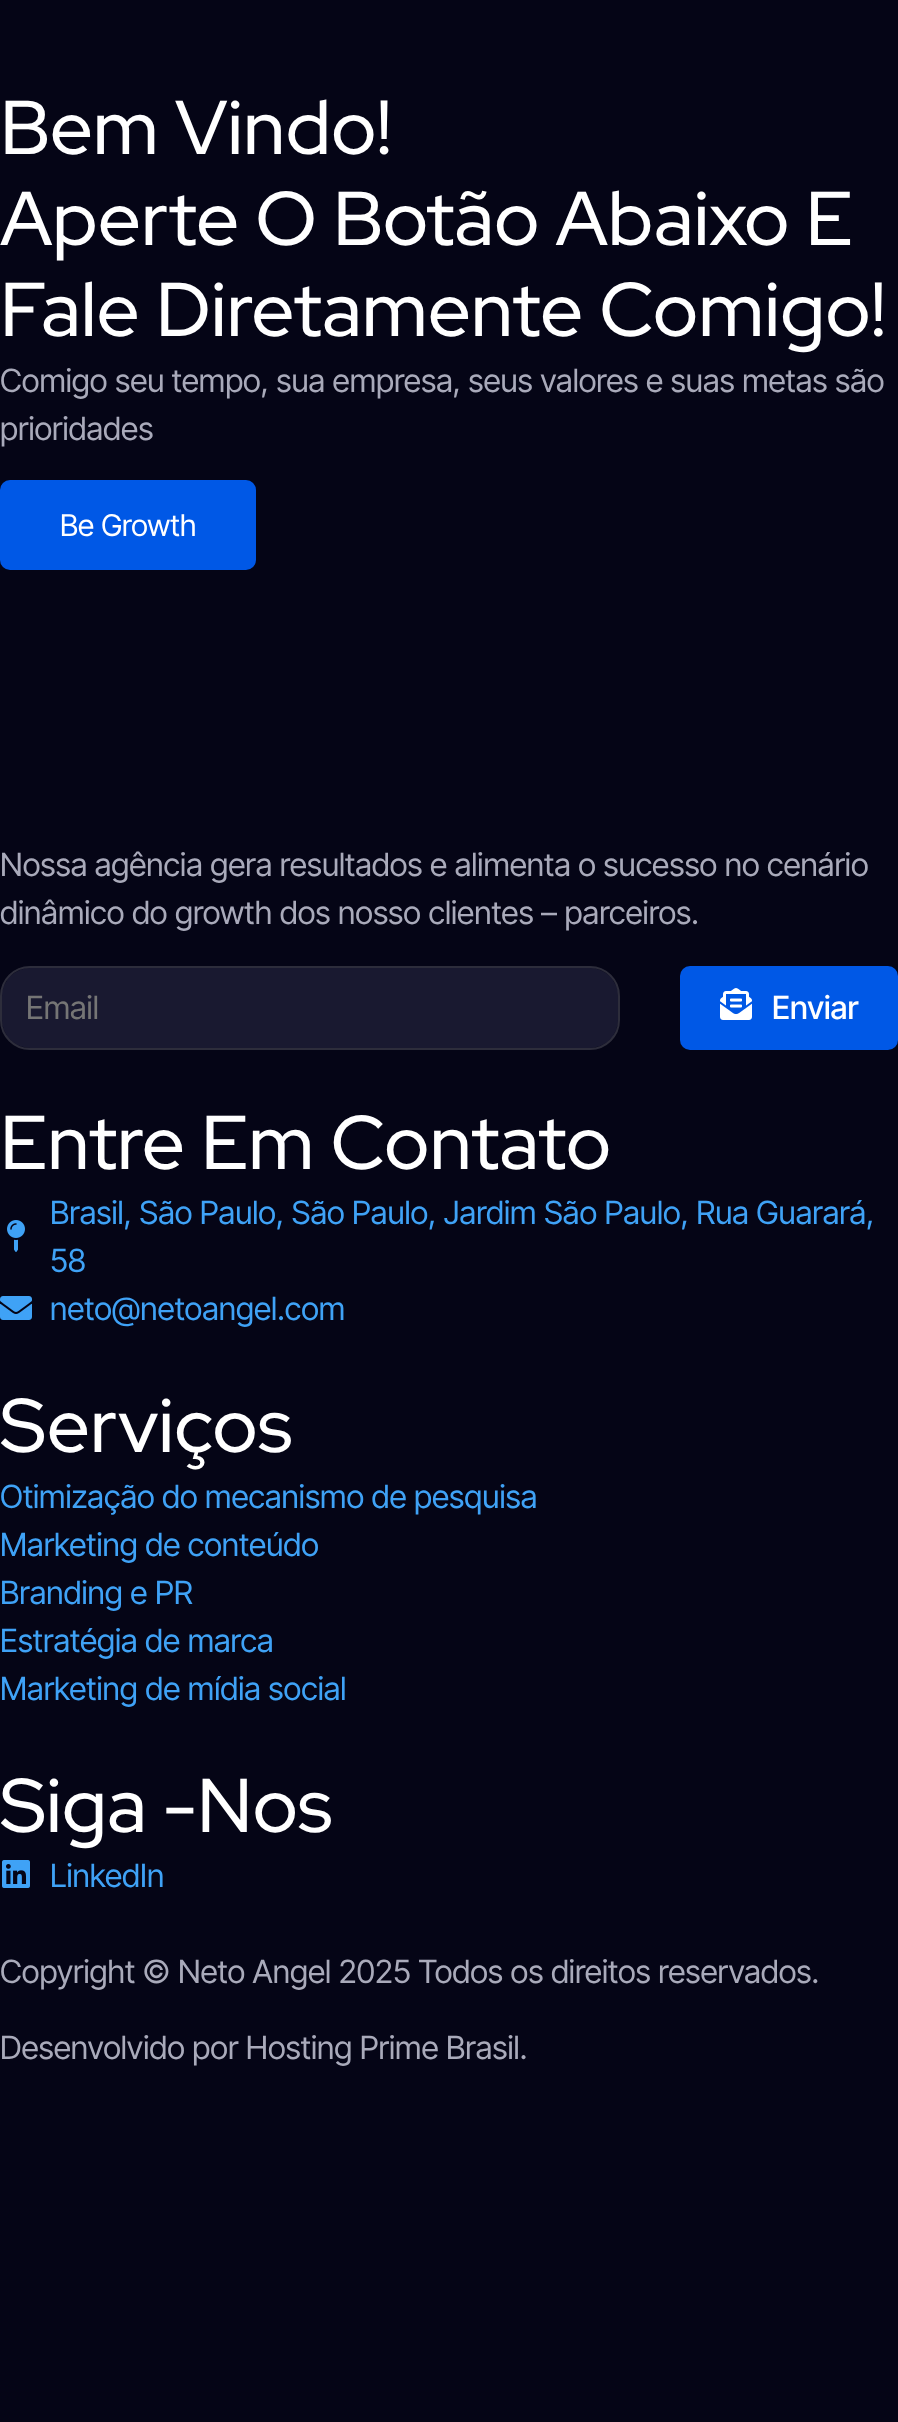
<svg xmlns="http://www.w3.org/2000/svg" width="898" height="2422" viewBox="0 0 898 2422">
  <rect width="100%" height="100%" fill="#050516"/>
  <rect y="480" width="256" height="90" rx="10" fill="#0058e6"/>
  <rect x="2" y="968" width="616" height="80" rx="28" fill="#191930"/>
  <rect x="1" y="967" width="618" height="82" rx="29" fill="none" stroke="#ffffff29" stroke-width="2"/>
  <rect x="680" y="966" width="218" height="84" rx="10" fill="#0058e6"/>
  <image x="720" y="988" width="32" height="32" href="img/1.png"/>
  <image x="7" y="1220" width="18" height="32" href="img/2.png"/>
  <image x="0" y="1296" width="32" height="24" href="img/3.png"/>
  <image x="2" y="1860" width="28" height="28" href="img/4.png"/>
  <g font-family="Red Hat Display" font-size="76" font-weight="500" fill="#fff">
    <text x="0" y="154">Bem Vindo!</text>
    <text x="0" y="245">Aperte O Botão Abaixo E</text>
    <text x="0" y="336">Fale Diretamente Comigo!</text>
  </g>
  <g font-family="Inter Tight" font-size="32" fill="#a9aaba">
    <text x="0" y="392">Comigo seu tempo, sua empresa, seus valores e suas metas são</text>
    <text x="0" y="440">prioridades</text>
  </g>
  <text x="60" y="536" font-family="Inter Tight" font-size="30" fill="#fff">Be Growth</text>
  <g font-family="Inter Tight" font-size="32" fill="#a9aaba">
    <text x="0" y="876">Nossa agência gera resultados e alimenta o sucesso no cenário</text>
    <text x="0" y="924">dinâmico do growth dos nosso clientes – parceiros.</text>
  </g>
  <text x="26" y="1019" font-family="Inter Tight" font-size="32" fill="#757575">Email</text>
  <text x="772" y="1019" font-family="Inter Tight" font-size="32" font-weight="500" fill="#fff">Enviar</text>
  <text x="0" y="1169" font-family="Red Hat Display" font-size="76" font-weight="500" fill="#fff">Entre Em Contato</text>
  <g font-family="Inter Tight" font-size="32" fill="#3fa2f6">
    <text x="50" y="1224">Brasil, São Paulo, São Paulo, Jardim São Paulo, Rua Guarará,</text>
    <text x="50" y="1272">58</text>
    <text x="50" y="1320">neto@netoangel.com</text>
  </g>
  <text x="0" y="1452" font-family="Red Hat Display" font-size="76" font-weight="500" fill="#fff">Serviços</text>
  <g font-family="Inter Tight" font-size="32" fill="#3fa2f6">
    <text x="0" y="1508">Otimização do mecanismo de pesquisa</text>
    <text x="0" y="1556">Marketing de conteúdo</text>
    <text x="0" y="1604">Branding e PR</text>
    <text x="0" y="1652">Estratégia de marca</text>
    <text x="0" y="1700">Marketing de mídia social</text>
  </g>
  <text x="0" y="1832" font-family="Red Hat Display" font-size="76" font-weight="500" fill="#fff">Siga -Nos</text>
  <text x="50" y="1887" font-family="Inter Tight" font-size="32" fill="#3fa2f6">LinkedIn</text>
  <g font-family="Inter Tight" font-size="32" fill="#a9aaba">
    <text x="0" y="1983">Copyright © Neto Angel 2025 Todos os direitos reservados.</text>
    <text x="0" y="2059">Desenvolvido por Hosting Prime Brasil.</text>
  </g>
</svg>
